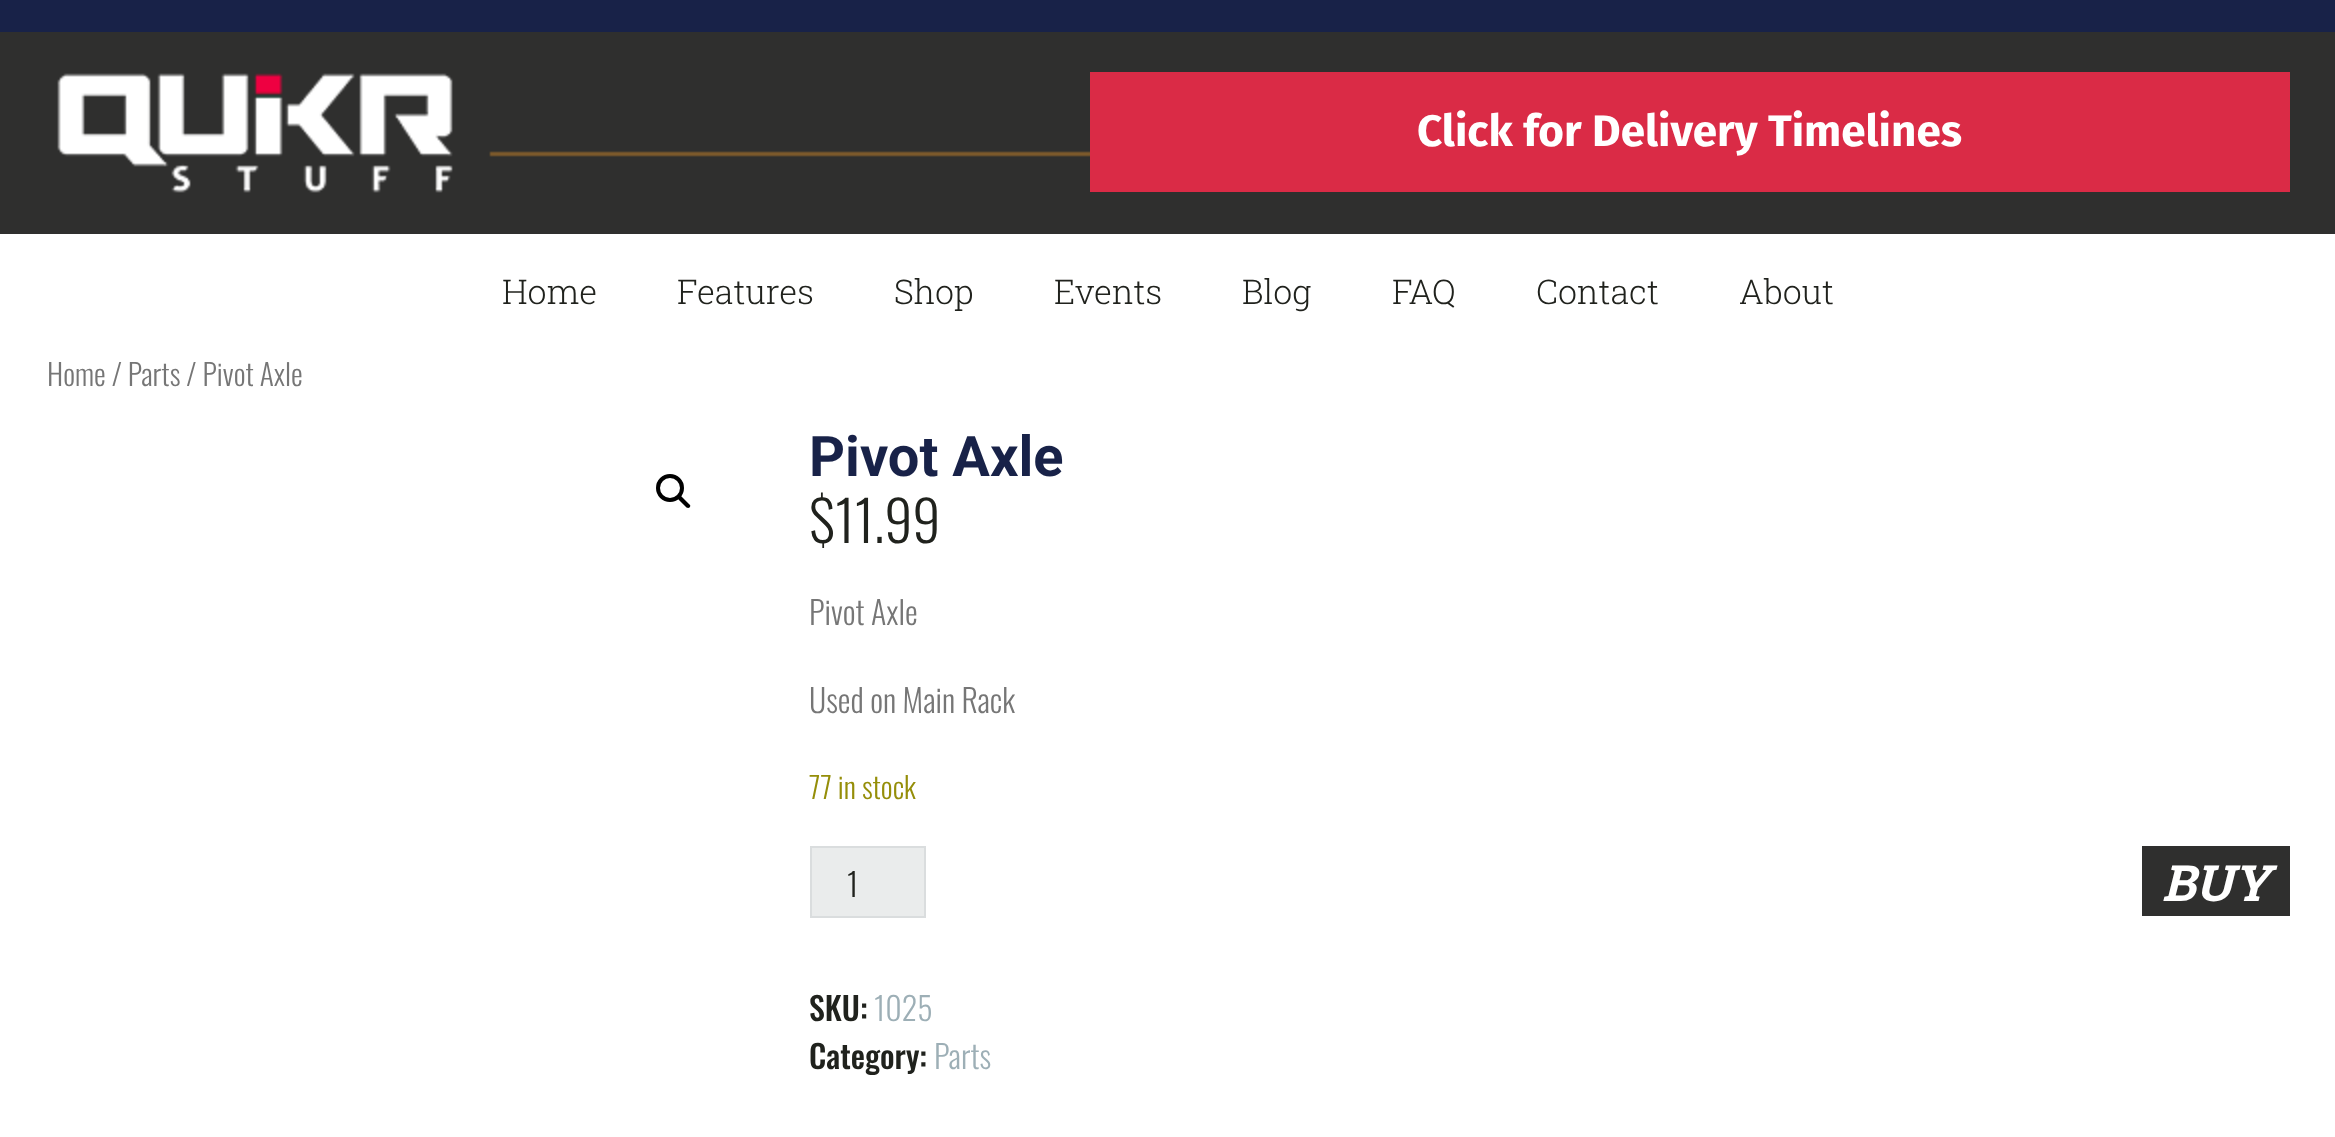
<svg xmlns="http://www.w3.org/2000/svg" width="2335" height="1137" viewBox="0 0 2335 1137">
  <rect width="100%" height="100%" fill="#fff"/>
  <path d="M0 0h2335v32H0z" fill="#182248"/>
  <path d="M0 32h2335v202H0z" fill="#2f2f2e"/>
  <image x="489" y="151" width="601" height="6" href="img/1.png"/>
  <image x="57" y="73" width="396" height="120" href="img/2.png"/>
  <path d="M1090 72h1200v120H1090z" fill="#da2b46"/>
  <circle cx="670" cy="488" r="12" fill="none" stroke="#000" stroke-width="4"/>
  <path d="M678 496C679 495 680.5 495 681 496L689.5 504.5C690.5 505 690.5 506.5 689.5 507.5C689 508 687.5 508 686.5 507.5L678 499C677.5 498 677.5 496.5 678 496Z" fill="#000"/>
  <path d="M811 847h114v70H811z" fill="#eaecec" stroke="#daddde" stroke-width="2"/>
  <path d="M2142 846h148v70H2142z" fill="#2f2f2e"/>
  <text x="1417" y="146" font-family="Fira Sans" font-size="44" font-weight="bold" fill="#fff">Click for Delivery Timelines</text>
  <g font-family="Roboto Slab" font-size="34" font-weight="300" fill="#20221d">
    <text x="502" y="304">Home</text>
    <text x="677" y="304">Features</text>
    <text x="894" y="304">Shop</text>
    <text x="1054" y="304">Events</text>
    <text x="1242" y="304">Blog</text>
    <text x="1392" y="304">FAQ</text>
    <text x="1536" y="304">Contact</text>
    <text x="1739" y="304">About</text>
  </g>
  <text x="47" y="386" font-family="Oswald" font-size="29.5" font-weight="300" fill="#767676">Home / Parts / Pivot Axle</text>
  <text x="809" y="476" font-family="Roboto" font-size="56" font-weight="bold" fill="#182248">Pivot Axle</text>
  <text x="809" y="543" font-family="Oswald" font-size="56" font-weight="300" fill="#20221d">$11.99</text>
  <g font-family="Oswald" font-size="32" font-weight="300" fill="#767676">
    <text x="809" y="625">Pivot Axle</text>
    <text x="809" y="713">Used on Main Rack</text>
  </g>
  <text x="809" y="799" font-family="Oswald" font-size="29.5" font-weight="300" fill="#958e09">77 in stock</text>
  <text x="847" y="897" font-family="Oswald" font-size="32" font-weight="300" fill="#20221d">1</text>
  <text x="2162" y="901" font-family="Roboto Slab" font-size="50" font-weight="bold" font-style="italic" fill="#fff">BUY</text>
  <text x="809" y="1021" font-family="Oswald" font-size="32" font-weight="500" fill="#20221d">SKU:</text>
  <text x="874" y="1021" font-family="Oswald" font-size="32" font-weight="300" fill="#9dafb6">1025</text>
  <text x="809" y="1069" font-family="Oswald" font-size="32" font-weight="500" fill="#20221d">Category:</text>
  <text x="934" y="1069" font-family="Oswald" font-size="32" font-weight="300" fill="#9dafb6">Parts</text>
</svg>
